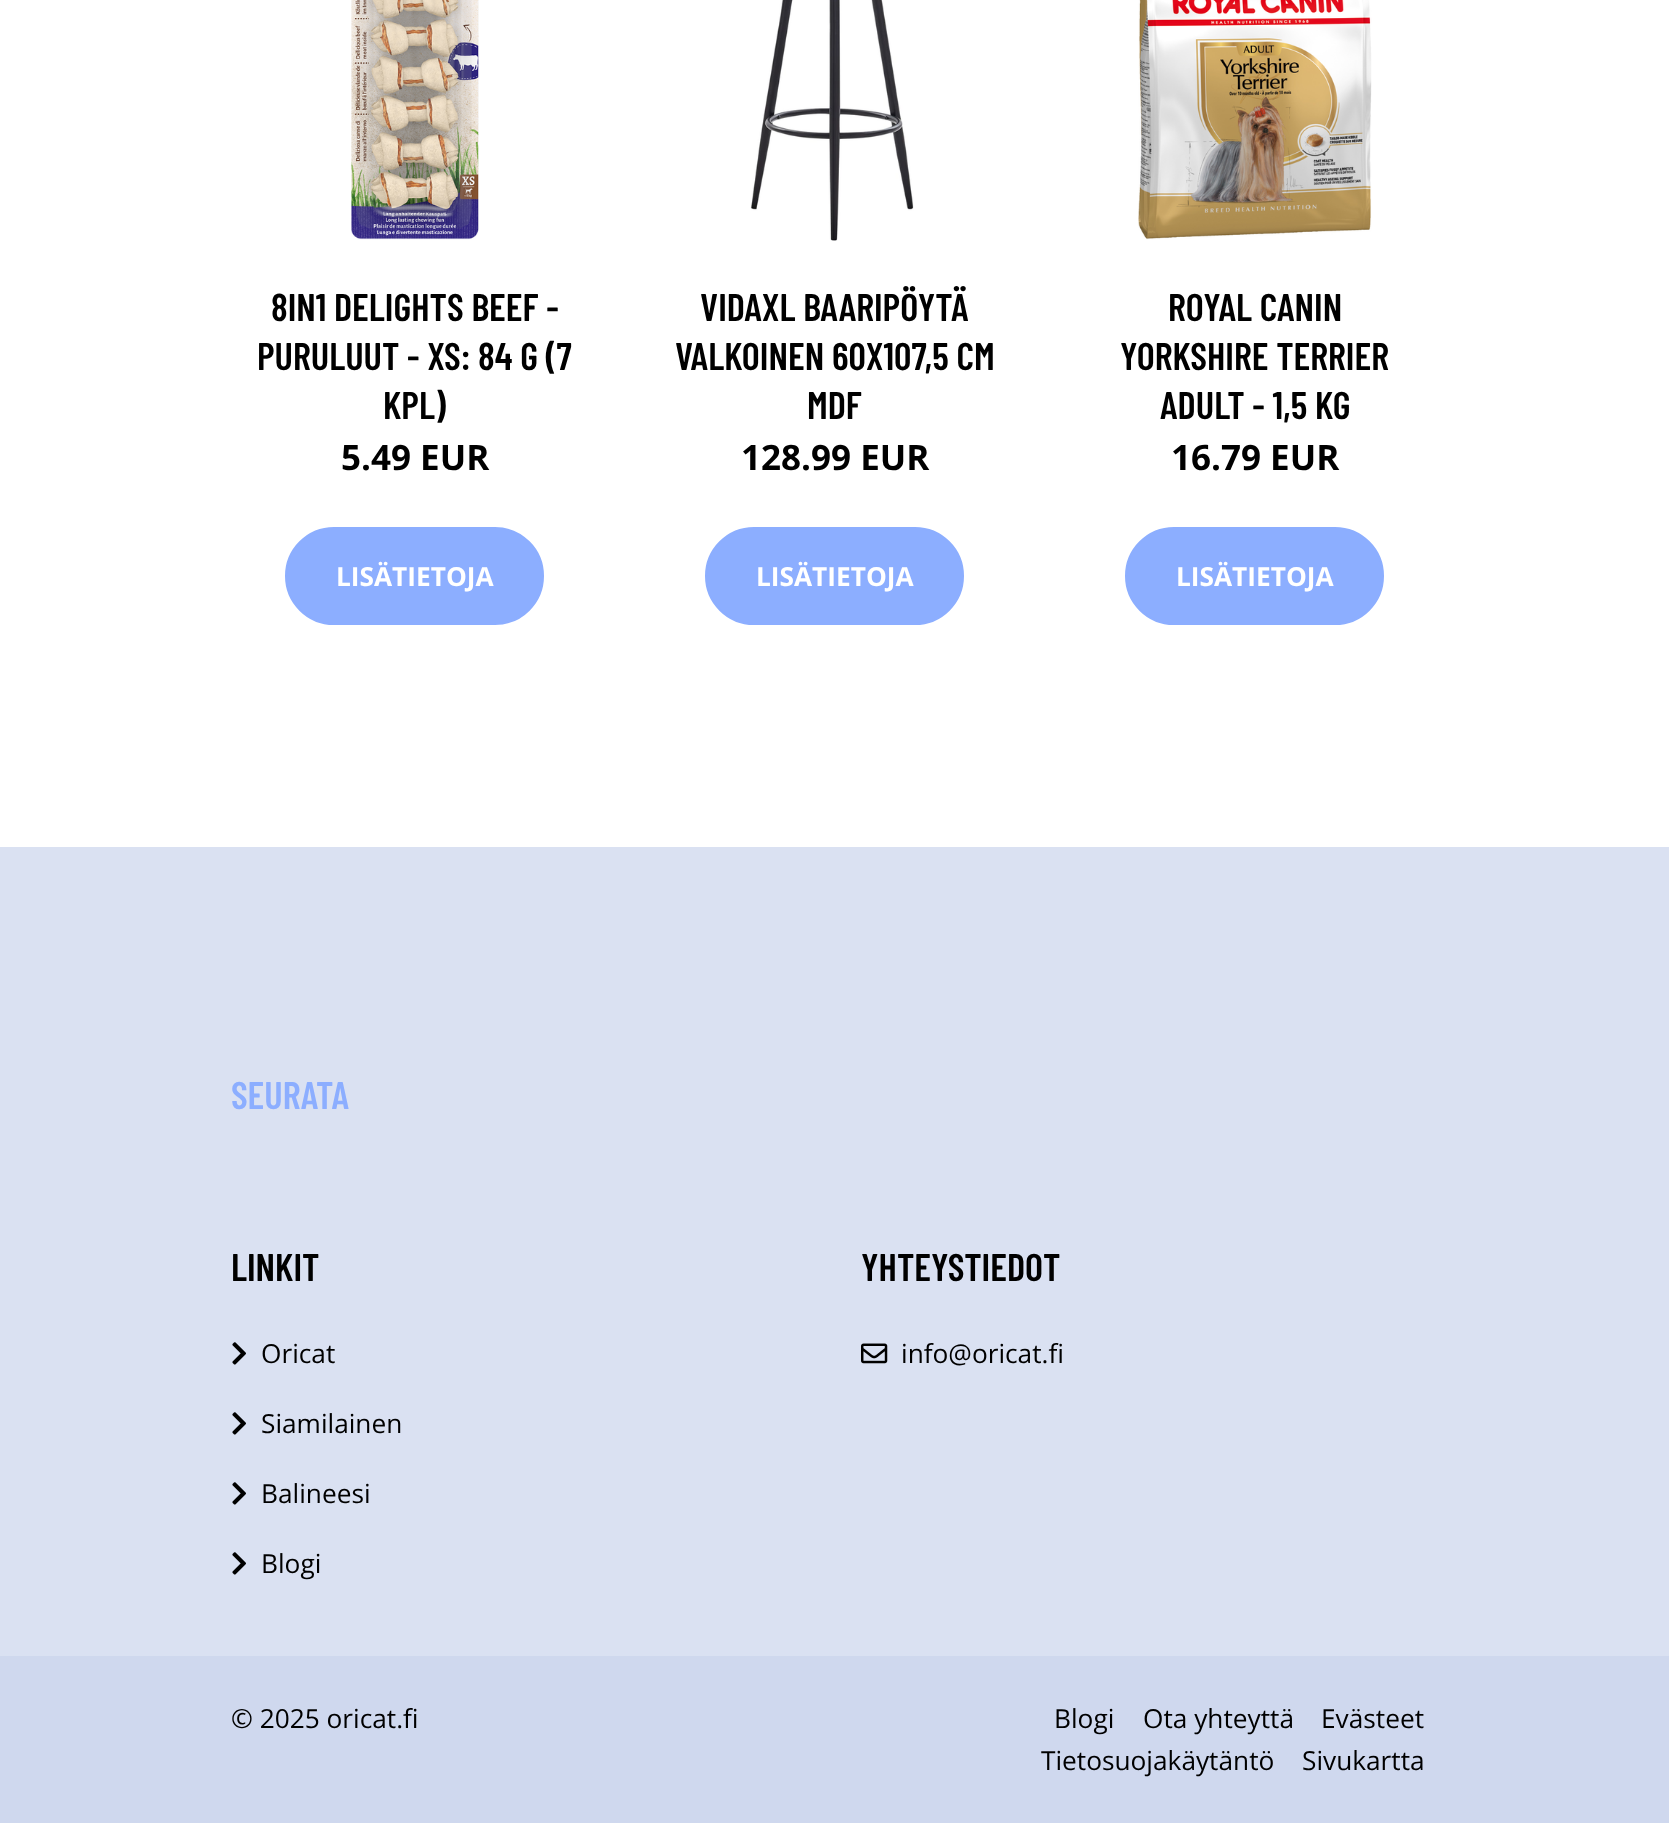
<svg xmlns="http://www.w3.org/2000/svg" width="1669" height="1823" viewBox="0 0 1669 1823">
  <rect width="100%" height="100%" fill="#fff"/>
  <image x="351" y="0" width="128" height="240" href="img/1.png"/>
  <rect x="286" y="528" width="257" height="96" rx="48" fill="#8caeff" stroke="#8caeff" stroke-width="2"/>
  <image x="750" y="0" width="164" height="241" href="img/2.png"/>
  <rect x="706" y="528" width="257" height="96" rx="48" fill="#8caeff" stroke="#8caeff" stroke-width="2"/>
  <image x="1138" y="0" width="234" height="240" href="img/3.png"/>
  <rect x="1126" y="528" width="257" height="96" rx="48" fill="#8caeff" stroke="#8caeff" stroke-width="2"/>
  <path d="M0 847h1669v809H0z" fill="#dae1f2"/>
  <image x="232" y="1342" width="14" height="23" href="img/4.png"/>
  <image x="232" y="1412" width="14" height="23" href="img/4.png"/>
  <image x="232" y="1482" width="14" height="23" href="img/4.png"/>
  <image x="232" y="1552" width="14" height="23" href="img/4.png"/>
  <image x="861" y="1343" width="27" height="21" href="img/5.png"/>
  <path d="M0 1656h1669v167H0z" fill="#cfd8ee"/>
  <g font-family="Barlow Condensed" font-size="38.5" font-weight="600" fill="#000">
    <text x="271" y="321">8IN1 DELIGHTS BEEF -</text>
    <text x="257" y="370">PURULUUT - XS: 84 G (7</text>
    <text x="383" y="419">KPL)</text>
  </g>
  <text x="341" y="470" font-family="Open Sans" font-size="35" font-weight="bold" fill="#000">5.49 EUR</text>
  <text x="336" y="586" font-family="Open Sans" font-size="26.25" font-weight="bold" fill="#fff">LISÄTIETOJA</text>
  <g font-family="Barlow Condensed" font-size="38.5" font-weight="600" fill="#000">
    <text x="700" y="321">VIDAXL BAARIPÖYTÄ</text>
    <text x="675" y="370">VALKOINEN 60X107,5 CM</text>
    <text x="807" y="419">MDF</text>
  </g>
  <text x="741" y="470" font-family="Open Sans" font-size="35" font-weight="bold" fill="#000">128.99 EUR</text>
  <text x="756" y="586" font-family="Open Sans" font-size="26.25" font-weight="bold" fill="#fff">LISÄTIETOJA</text>
  <g font-family="Barlow Condensed" font-size="38.5" font-weight="600" fill="#000">
    <text x="1168" y="321">ROYAL CANIN</text>
    <text x="1120" y="370">YORKSHIRE TERRIER</text>
    <text x="1160" y="419">ADULT - 1,5 KG</text>
  </g>
  <text x="1171" y="470" font-family="Open Sans" font-size="35" font-weight="bold" fill="#000">16.79 EUR</text>
  <text x="1176" y="586" font-family="Open Sans" font-size="26.25" font-weight="bold" fill="#fff">LISÄTIETOJA</text>
  <text x="231" y="1109" font-family="Barlow Condensed" font-size="38.5" font-weight="600" fill="#8caeff">SEURATA</text>
  <text x="231" y="1281" font-family="Barlow Condensed" font-size="38.5" font-weight="600" fill="#000">LINKIT</text>
  <g font-family="Open Sans" font-size="26.25" fill="#000">
    <text x="261" y="1363">Oricat</text>
    <text x="261" y="1433">Siamilainen</text>
    <text x="261" y="1503">Balineesi</text>
    <text x="261" y="1573">Blogi</text>
  </g>
  <text x="861" y="1281" font-family="Barlow Condensed" font-size="38.5" font-weight="600" fill="#000">YHTEYSTIEDOT</text>
  <g font-family="Open Sans" font-size="26.25" fill="#000">
    <text x="901" y="1363">info@oricat.fi</text>
    <text x="231" y="1728">© 2025 oricat.fi</text>
    <text x="1054" y="1728">Blogi</text>
    <text x="1143" y="1728">Ota yhteyttä</text>
    <text x="1321" y="1728">Evästeet</text>
    <text x="1041" y="1770">Tietosuojakäytäntö</text>
    <text x="1302" y="1770">Sivukartta</text>
  </g>
</svg>
